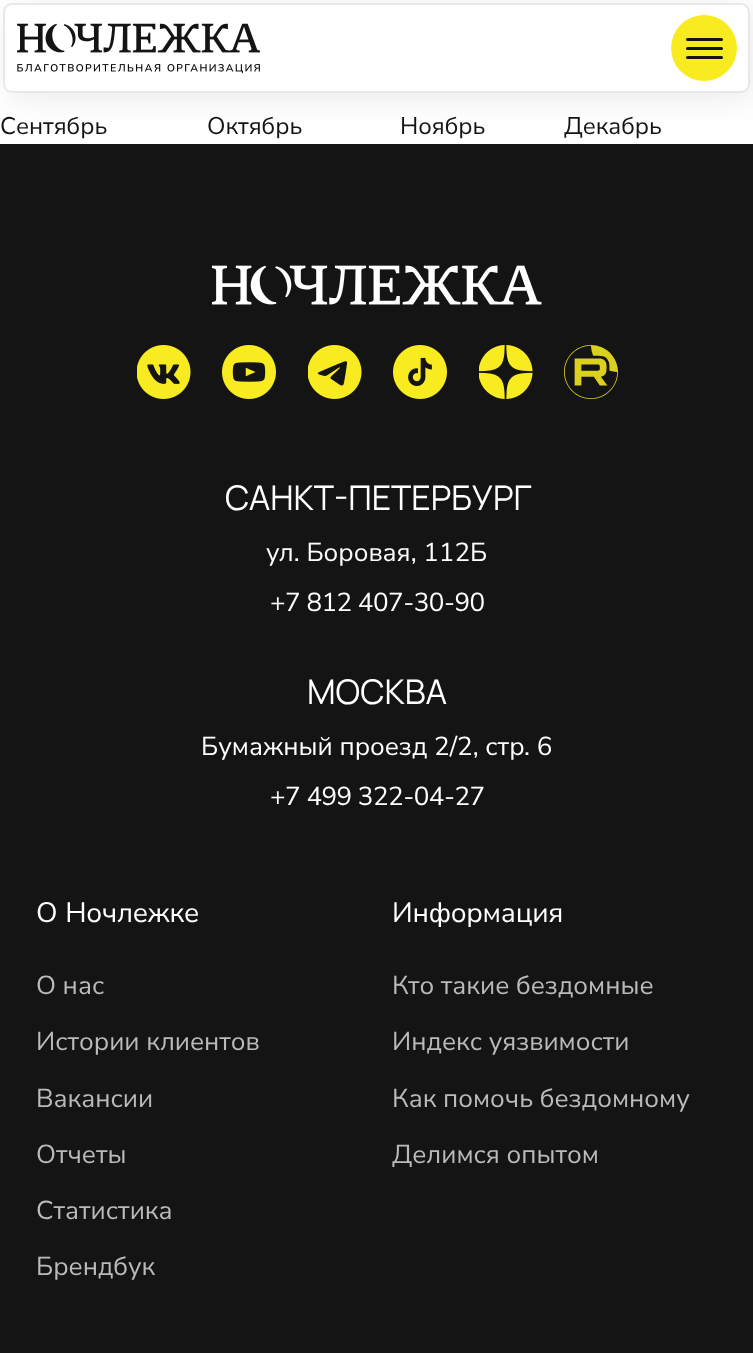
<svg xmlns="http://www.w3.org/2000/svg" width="753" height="1353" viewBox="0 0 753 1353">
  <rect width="100%" height="100%" fill="#fff"/>
  <path d="M0 144h753v1209H0z" fill="#141414"/>
  <rect x="9" y="9" width="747" height="90" rx="9" fill="#bdbdbd4d" filter="blur(15px)"/>
  <rect x="4" y="4" width="745" height="88" rx="8" fill="#fff" stroke="#e8e8e8" stroke-width="2"/>
  <image x="17" y="23" width="243" height="30" href="img/1.png"/>
  <image x="17" y="64" width="243" height="10" href="img/2.png"/>
  <circle cx="704" cy="48" r="33" fill="#f8eb20"/>
  <rect x="686" y="38" width="37" height="3" rx="1.5" fill="#141414"/>
  <rect x="686" y="47" width="37" height="3" rx="1.5" fill="#141414"/>
  <rect x="686" y="56" width="37" height="3" rx="1.5" fill="#141414"/>
  <image x="212" y="265" width="330" height="40" href="img/3.png"/>
  <image x="137" y="345" width="54" height="54" href="img/4.png"/>
  <image x="222" y="345" width="54" height="54" href="img/5.png"/>
  <image x="308" y="345" width="54" height="54" href="img/6.png"/>
  <image x="393" y="345" width="54" height="54" href="img/7.png"/>
  <image x="479" y="345" width="54" height="54" href="img/8.png"/>
  <image x="564" y="345" width="54" height="54" href="img/9.png"/>
  <g font-family="Nunito Sans" font-size="24" fill="#141414">
    <text x="0" y="134">Сентябрь</text>
    <text x="207" y="134">Октябрь</text>
    <text x="400" y="134">Ноябрь</text>
    <text x="564" y="134">Декабрь</text>
  </g>
  <text x="225" y="510" font-family="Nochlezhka" font-size="34" fill="#fff">САНКТ-ПЕТЕРБУРГ</text>
  <text x="266" y="561" font-family="Nunito Sans" font-size="26" fill="#fff">ул. Боровая, 112Б</text>
  <text x="270" y="611" font-family="Nunito Sans" font-size="26" letter-spacing="-0.5" fill="#fff">+7 812 407-30-90</text>
  <text x="307" y="704" font-family="Nochlezhka" font-size="34" fill="#fff">МОСКВА</text>
  <text x="201" y="755" font-family="Nunito Sans" font-size="26" fill="#fff">Бумажный проезд 2/2, стр. 6</text>
  <text x="270" y="805" font-family="Nunito Sans" font-size="26" letter-spacing="-0.5" fill="#fff">+7 499 322-04-27</text>
  <text x="36" y="922" word-spacing="1" font-family="Nunito Sans" font-size="28" letter-spacing="-0.25" fill="#fff">О Ночлежке</text>
  <g font-family="Nunito Sans" font-size="26" fill="#bbbaba">
    <text x="36" y="994">О нас</text>
    <text x="36" y="1050">Истории клиентов</text>
    <text x="36" y="1107">Вакансии</text>
    <text x="36" y="1163">Отчеты</text>
    <text x="36" y="1219">Статистика</text>
    <text x="36" y="1275">Брендбук</text>
  </g>
  <text x="392" y="922" font-family="Nunito Sans" font-size="28" letter-spacing="-0.25" fill="#fff">Информация</text>
  <g font-family="Nunito Sans" font-size="26" fill="#bbbaba">
    <text x="392" y="994">Кто такие бездомные</text>
    <text x="392" y="1050">Индекс уязвимости</text>
    <text x="392" y="1107">Как помочь бездомному</text>
    <text x="392" y="1163">Делимся опытом</text>
  </g>
</svg>
